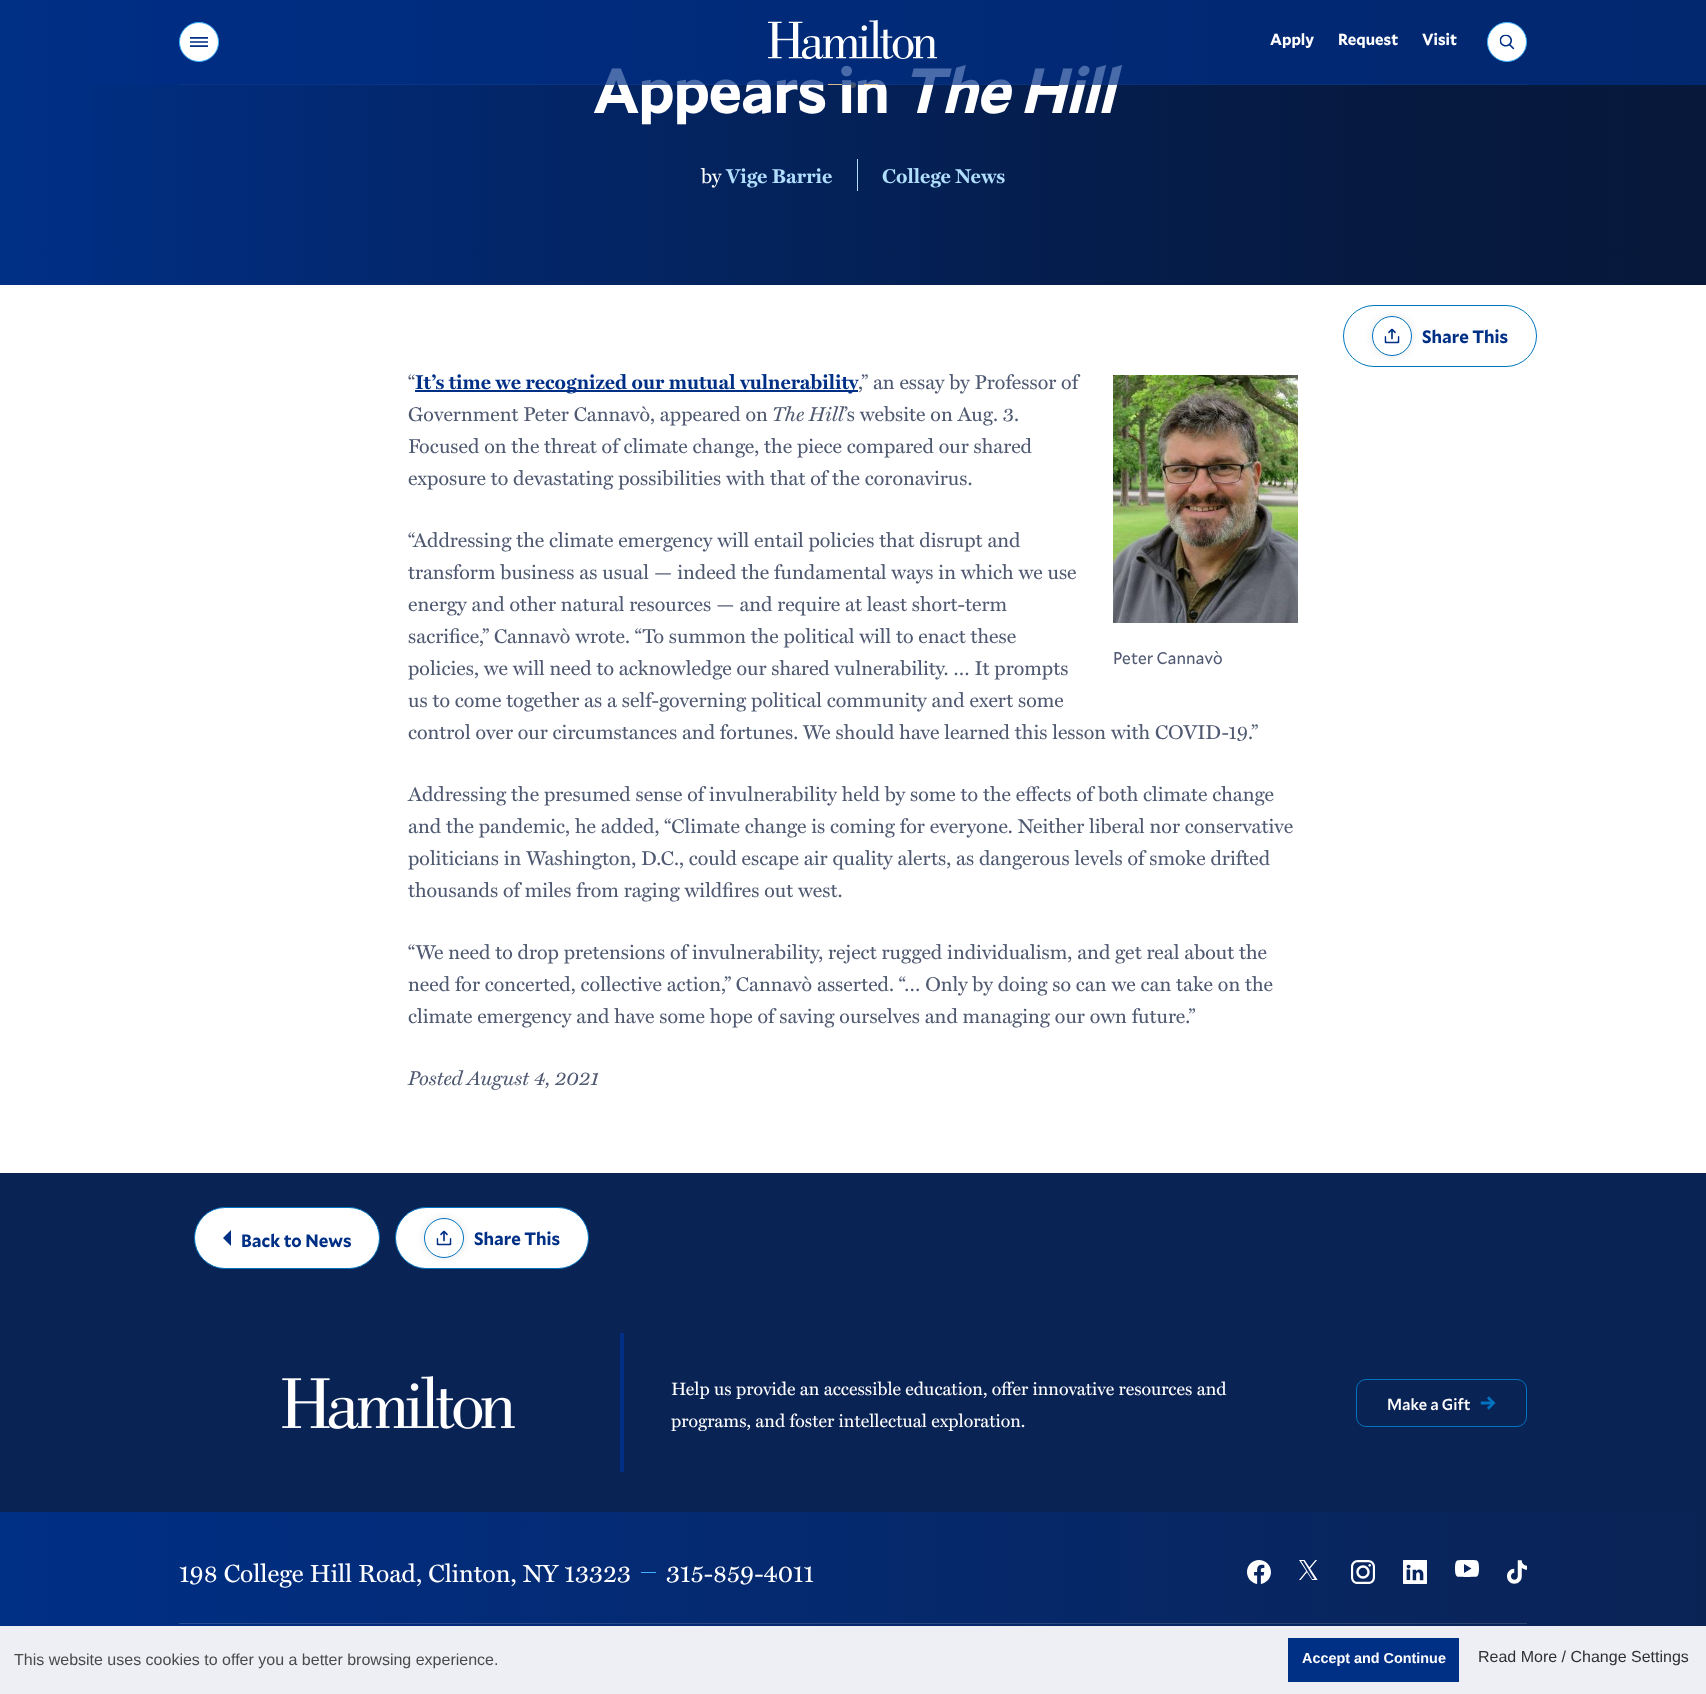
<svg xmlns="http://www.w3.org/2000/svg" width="1706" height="1694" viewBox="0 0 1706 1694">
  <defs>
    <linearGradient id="g1" gradientUnits="userSpaceOnUse" x1="0" y1="73" x2="1706" y2="72"><stop offset="0" stop-color="#002f86"/><stop offset="1" stop-color="#0a2355"/></linearGradient>
    <linearGradient id="g2" gradientUnits="userSpaceOnUse" x1="0" y1="73" x2="1706" y2="72"><stop offset="0" stop-color="#000" stop-opacity="0"/><stop offset="0.79" stop-color="#000" stop-opacity="0.32"/></linearGradient>
    <linearGradient id="g3" gradientUnits="userSpaceOnUse" x1="0" y1="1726" x2="1706" y2="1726"><stop offset="0" stop-color="#002f86"/><stop offset="1" stop-color="#0a2355"/></linearGradient>
    <linearGradient id="g4" gradientUnits="userSpaceOnUse" x1="0" y1="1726" x2="1706" y2="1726"><stop offset="0" stop-color="#264e98"/><stop offset="1" stop-color="#2f446f"/></linearGradient>
  </defs>
  <rect width="100%" height="100%" fill="#fff"/>
  <path d="M0 0h1706v285H0z" fill="url(#g1)"/>
  <path d="M91 0h1615v285H91z" fill="url(#g2)"/>
  <path d="M857 159h1v32H857z" fill="#b0defc"/>
  <rect x="1343.5" y="305.5" width="193" height="61" rx="30.5" fill="none" stroke="#0173bf"/>
  <rect x="1372" y="316" width="40" height="40" rx="20" fill="#0000001a" filter="blur(4px)"/>
  <circle cx="1392" cy="336" r="19.5" fill="#fff" stroke="#0173bf"/>
  <image x="1384" y="328" width="16" height="16" href="img/4.png"/>
  <path d="M415 390h443v2H415z" fill="#002f86"/>
  <image x="1113" y="375" width="185" height="248" href="img/5.png"/>
  <path d="M0 1173h1706v339H0z" fill="#0a2355"/>
  <rect x="194.5" y="1207.5" width="185" height="61" rx="30.5" fill="#fff" stroke="#0173bf"/>
  <image x="223" y="1230" width="8" height="16" href="img/6.png"/>
  <rect x="395.5" y="1207.5" width="193" height="61" rx="30.5" fill="#fff" stroke="#0173bf"/>
  <rect x="424" y="1218" width="40" height="40" rx="20" fill="#0000001a" filter="blur(4px)"/>
  <circle cx="444" cy="1238" r="19.5" fill="#fff" stroke="#0173bf"/>
  <image x="436" y="1230" width="16" height="16" href="img/4.png"/>
  <path d="M620 1333h4v139H620z" fill="#002f86"/>
  <image x="282" y="1376" width="233" height="53" href="img/7.png"/>
  <rect x="1356.5" y="1379.5" width="170" height="47" rx="9.5" fill="none" stroke="#0173bf"/>
  <image x="1480" y="1396" width="16" height="14" href="img/8.png"/>
  <path d="M0 1512h1706v114H0z" fill="url(#g3)"/>
  <path d="M179 1623h1348v1H179z" fill="url(#g4)"/>
  <path d="M641 1572h15v1H641z" fill="#3fb3ff"/>
  <image x="1247" y="1560" width="24" height="24" href="img/9.png"/>
  <image x="1299" y="1560" width="19" height="20" href="img/10.png"/>
  <image x="1351" y="1560" width="24" height="24" href="img/11.png"/>
  <image x="1403" y="1560" width="24" height="24" href="img/12.png"/>
  <image x="1455" y="1560" width="24" height="17" href="img/13.png"/>
  <image x="1507" y="1560" width="20" height="24" href="img/14.png"/>
  <path d="M0 1626h1706v68H0z" fill="#edeff5"/>
  <path d="M1288 1638h171v44H1288z" fill="#002f86"/>
  <text x="593" y="113" font-family="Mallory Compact" font-size="61" font-weight="bold" fill="#fff">Appears in</text>
  <text x="901" y="113" font-family="Mallory Compact" font-size="61" font-weight="bold" font-style="italic" fill="#fff">The Hill</text>
  <path d="M91 0h1615v85H91z" fill="#002f86b5"/>
  <path d="M179 84h1348v1H179z" fill="#ffffff0a"/>
  <path d="M864 84h14v1H864z" fill="#d6ba8b"/>
  <circle cx="853" cy="85" r="3" fill="#d6ba8b47"/>
  <path d="M828 84h14v1H828z" fill="#d6ba8b"/>
  <g font-family="'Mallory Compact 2'" font-size="16" font-weight="bold" fill="#fff">
    <text x="1422" y="45">Visit</text>
    <text x="1338" y="45">Request</text>
    <text x="1270" y="45">Apply</text>
  </g>
  <circle cx="1507" cy="42" r="19.5" fill="#fff" stroke="#3fb3ff"/>
  <image x="1499" y="34" width="16" height="16" href="img/3.png"/>
  <circle cx="199" cy="42" r="19.5" fill="#fff" stroke="#3fb3ff"/>
  <image x="190" y="37" width="18" height="10" href="img/2.png"/>
  <image x="768" y="20" width="170" height="39" href="img/1.png"/>
  <text x="701" y="183" font-family="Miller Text" font-size="20" fill="#fff">by</text>
  <g font-family="Miller Text" font-size="20" font-weight="bold" fill="#b0defc">
    <text x="726" y="183">Vige Barrie</text>
    <text x="882" y="183">College News</text>
  </g>
  <text x="1422" y="343" font-family="'Mallory Compact 2'" font-size="18" font-weight="bold" fill="#002f86">Share This</text>
  <text x="408" y="389" font-family="Miller Text" font-size="20" fill="#4f5971">“</text>
  <text x="415" y="389" font-family="Miller Text" font-size="20" font-weight="bold" fill="#002f86">It’s time we recognized our mutual vulnerability</text>
  <g font-family="Miller Text" font-size="20" fill="#4f5971">
    <text x="858" y="389">,” an essay by Professor of</text>
    <text x="408" y="421">Government Peter Cannavò, appeared on</text>
  </g>
  <text x="772" y="421" font-family="Miller Text" font-size="20" font-style="italic" fill="#4f5971">The Hill</text>
  <g font-family="Miller Text" font-size="20" fill="#4f5971">
    <text x="844" y="421">’s website on Aug. 3.</text>
    <text x="408" y="453">Focused on the threat of climate change, the piece compared our shared</text>
    <text x="408" y="485">exposure to devastating possibilities with that of the coronavirus.</text>
    <text x="408" y="547">“Addressing the climate emergency will entail policies that disrupt and</text>
    <text x="408" y="579">transform business as usual — indeed the fundamental ways in which we use</text>
    <text x="408" y="611">energy and other natural resources — and require at least short-term</text>
    <text x="408" y="643">sacrifice,” Cannavò wrote. “To summon the political will to enact these</text>
    <text x="408" y="675">policies, we will need to acknowledge our shared vulnerability. … It prompts</text>
    <text x="408" y="707">us to come together as a self-governing political community and exert some</text>
    <text x="408" y="739">control over our circumstances and fortunes. We should have learned this lesson with COVID-19.”</text>
    <text x="408" y="801">Addressing the presumed sense of invulnerability held by some to the effects of both climate change</text>
    <text x="408" y="833">and the pandemic, he added, “Climate change is coming for everyone. Neither liberal nor conservative</text>
    <text x="408" y="865">politicians in Washington, D.C., could escape air quality alerts, as dangerous levels of smoke drifted</text>
    <text x="408" y="897">thousands of miles from raging wildfires out west.</text>
    <text x="408" y="959">“We need to drop pretensions of invulnerability, reject rugged individualism, and get real about the</text>
    <text x="408" y="991">need for concerted, collective action,” Cannavò asserted. “… Only by doing so can we can take on the</text>
    <text x="408" y="1023">climate emergency and have some hope of saving ourselves and managing our own future.”</text>
  </g>
  <text x="1113" y="664" font-family="Mallory Compact" font-size="17" fill="#4f5971">Peter Cannavò</text>
  <text x="408" y="1085" font-family="Miller Text" font-size="20" font-style="italic" fill="#4f5971">Posted August 4, 2021</text>
  <g font-family="'Mallory Compact 2'" font-size="18" font-weight="bold" fill="#002f86">
    <text x="241" y="1247">Back to News</text>
    <text x="474" y="1245">Share This</text>
  </g>
  <g font-family="Miller Text" font-size="18" fill="#fff">
    <text x="671" y="1395">Help us provide an accessible education, offer innovative resources and</text>
    <text x="671" y="1427">programs, and foster intellectual exploration.</text>
  </g>
  <text x="1387" y="1410" font-family="Mallory Compact" font-size="16" font-weight="500" fill="#fff">Make a Gift</text>
  <g font-family="Miller Text" font-size="25" fill="#fff">
    <text x="179" y="1582">198 College Hill Road, Clinton, NY 13323</text>
    <text x="666" y="1582">315-859-4011</text>
  </g>
  <text x="14" y="1665" font-family="Liberation Sans" font-size="16" fill="#4a4a4a">This website uses cookies to offer you a better browsing experience.</text>
  <text x="1302" y="1663" font-family="Liberation Sans" font-size="14.4" font-weight="bold" fill="#fff">Accept and Continue</text>
  <text x="1478" y="1662" font-family="Liberation Sans" font-size="16" fill="#2f3031">Read More / Change Settings</text>
</svg>
